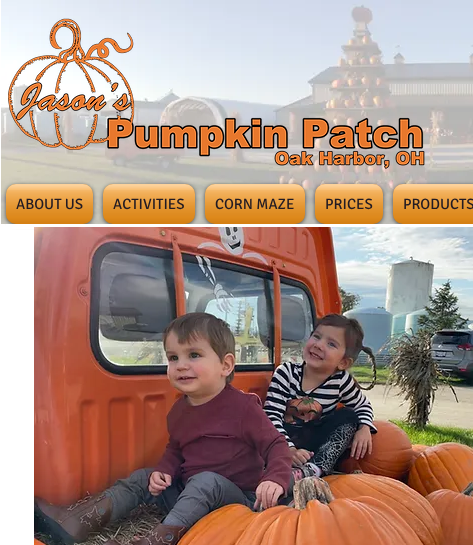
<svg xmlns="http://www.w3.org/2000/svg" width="473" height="545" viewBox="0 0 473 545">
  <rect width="100%" height="100%" fill="#fff"/>
  <image x="1" y="0" width="472" height="224" href="img/1.png"/>
  <image x="8" y="18" width="417" height="151" href="img/2.png"/>
  <rect x="6" y="185" width="87" height="40" rx="10" fill="#00000099" filter="blur(2px)"/>
  <rect x="6" y="184" width="87" height="40" rx="10" fill="#f7900c"/>
  <image x="6" y="184" width="87" height="40" href="img/3.png"/>
  <image x="6" y="190" width="87" height="34" href="img/4.png"/>
  <rect x="103" y="185" width="92" height="40" rx="10" fill="#00000099" filter="blur(2px)"/>
  <rect x="103" y="184" width="92" height="40" rx="10" fill="#f7900c"/>
  <image x="103" y="184" width="92" height="40" href="img/5.png"/>
  <image x="103" y="190" width="92" height="34" href="img/6.png"/>
  <rect x="205" y="185" width="100" height="40" rx="10" fill="#00000099" filter="blur(2px)"/>
  <rect x="205" y="184" width="100" height="40" rx="10" fill="#f7900c"/>
  <image x="205" y="184" width="100" height="40" href="img/7.png"/>
  <image x="205" y="190" width="100" height="34" href="img/8.png"/>
  <rect x="315" y="185" width="68" height="40" rx="10" fill="#00000099" filter="blur(2px)"/>
  <rect x="315" y="184" width="68" height="40" rx="10" fill="#f7900c"/>
  <image x="315" y="184" width="68" height="40" href="img/9.png"/>
  <image x="315" y="190" width="68" height="34" href="img/10.png"/>
  <rect x="393" y="185" width="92" height="40" rx="10" fill="#00000099" filter="blur(2px)"/>
  <rect x="393" y="184" width="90" height="40" rx="10" fill="#f7900c"/>
  <image x="393" y="184" width="80" height="40" href="img/11.png"/>
  <image x="393" y="190" width="80" height="34" href="img/12.png"/>
  <path d="M6 224h467v5H6z" fill="#fff"/>
  <image x="34" y="227" width="439" height="318" href="img/13.png"/>
  <g font-family="Signika" font-size="15" fill="#221b23">
    <text x="16" y="209">ABOUT US</text>
    <text x="113" y="209">ACTIVITIES</text>
    <text x="215" y="209">CORN MAZE</text>
    <text x="325" y="209">PRICES</text>
    <text x="403" y="209">PRODUCTS</text>
  </g>
</svg>
